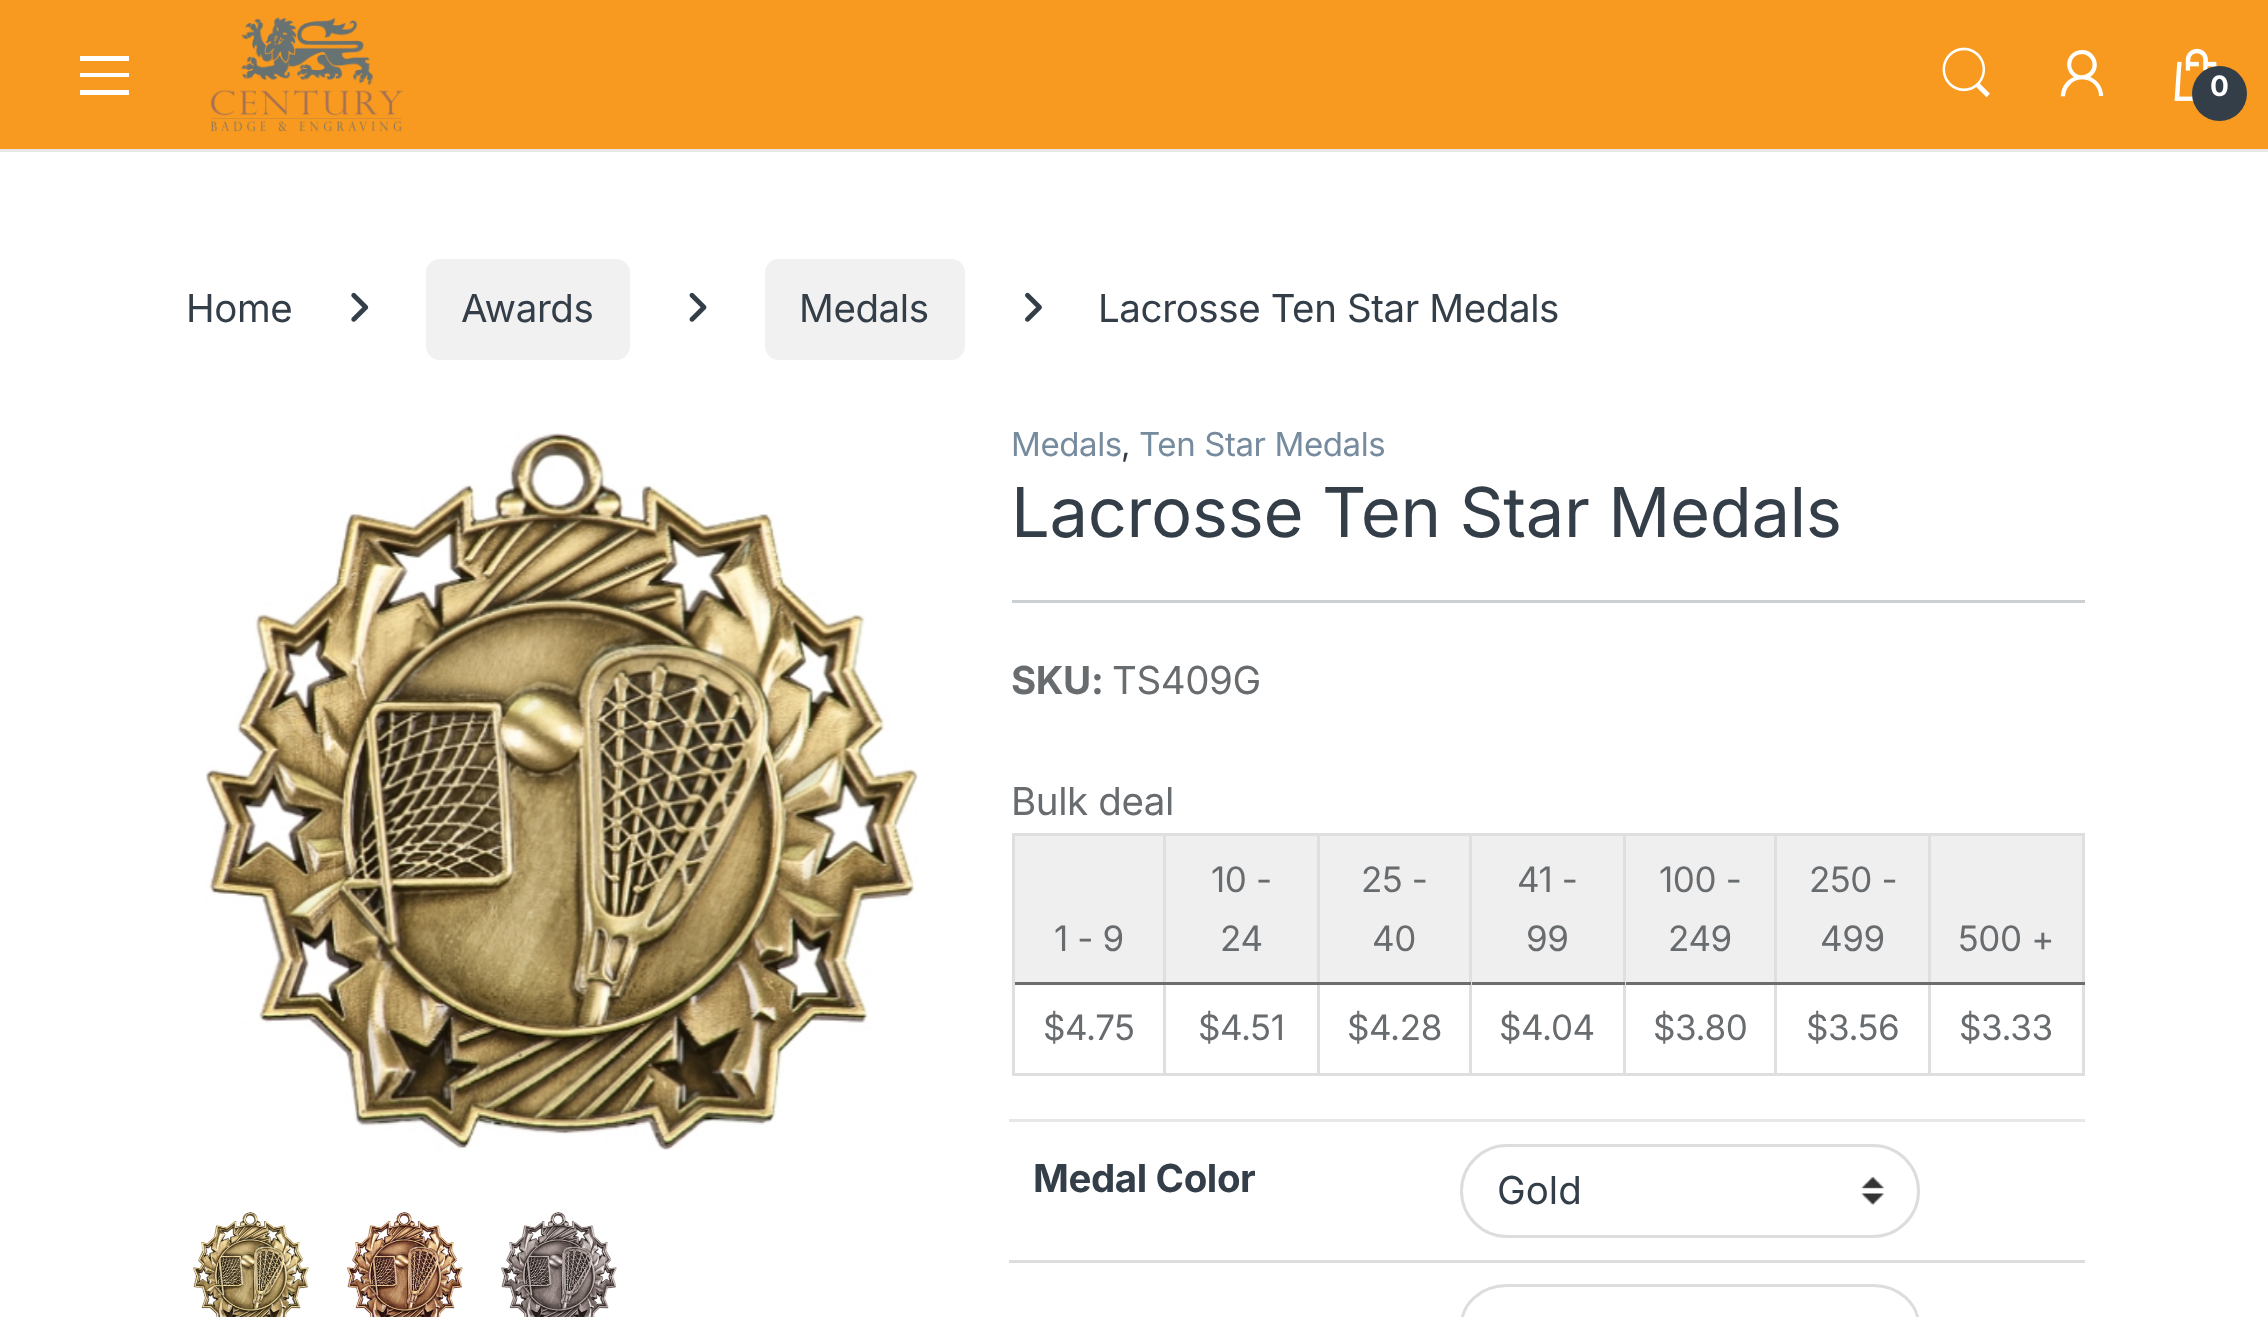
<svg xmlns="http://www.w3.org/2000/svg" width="2268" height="1317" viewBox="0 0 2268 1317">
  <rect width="100%" height="100%" fill="#fff"/>
  <path d="M0 149h2268v3H0z" fill="#e7e7e7"/>
  <path d="M0 0h2268v149H0z" fill="#f89a20"/>
  <path d="M80 95V90H129V95ZM80 73H129V77H80ZM80 56H129V61H80Z" fill="#fff"/>
  <image x="211" y="17" width="193" height="115" href="img/1.png"/>
  <image x="1942" y="47" width="48" height="51" href="img/2.png"/>
  <image x="2060" y="50" width="44" height="47" href="img/3.png"/>
  <image x="2174" y="48" width="43" height="53" href="img/4.png"/>
  <circle cx="2219.5" cy="93.5" r="27.5" fill="#333e48"/>
  <image x="351" y="292" width="18" height="30" href="img/5.png"/>
  <rect x="426" y="259" width="204" height="101" rx="14" fill="#f1f1f1"/>
  <image x="689" y="292" width="18" height="30" href="img/6.png"/>
  <rect x="765" y="259" width="200" height="101" rx="14" fill="#f1f1f1"/>
  <image x="1025" y="292" width="17" height="30" href="img/7.png"/>
  <image x="205" y="433" width="713" height="718" href="img/8.png"/>
  <image x="193" y="1212" width="116" height="105" href="img/9.png"/>
  <image x="347" y="1212" width="116" height="105" href="img/10.png"/>
  <image x="501" y="1212" width="116" height="105" href="img/11.png"/>
  <path d="M1012 600h1073v3H1012z" fill="#cccfd1"/>
  <path d="M1015 836h1067v146H1015z" fill="#efefef"/>
  <path d="M1928 833h157v3H1928z" fill="#dfdfdf"/>
  <path d="M2082 982h3v93H2082z" fill="#dfdfdf"/>
  <path d="M2082 833h3v152H2082z" fill="#dfdfdf"/>
  <path d="M1928 1073h157v3H1928z" fill="#dfdfdf"/>
  <path d="M1928 982h3v93H1928z" fill="#dfdfdf"/>
  <path d="M1928 982h157v3H1928z" fill="#6d6d6d"/>
  <path d="M1928 833h3v152H1928z" fill="#dfdfdf"/>
  <path d="M1774 833h157v3H1774z" fill="#dfdfdf"/>
  <path d="M1774 1073h157v3H1774z" fill="#dfdfdf"/>
  <path d="M1774 982h3v93H1774z" fill="#dfdfdf"/>
  <path d="M1774 982h157v3H1774z" fill="#6d6d6d"/>
  <path d="M1774 833h3v152H1774z" fill="#dfdfdf"/>
  <path d="M1623 833h154v3H1623z" fill="#dfdfdf"/>
  <path d="M1623 1073h154v3H1623z" fill="#dfdfdf"/>
  <path d="M1623 982h3v93H1623z" fill="#dfdfdf"/>
  <path d="M1623 982h154v3H1623z" fill="#6d6d6d"/>
  <path d="M1623 833h3v152H1623z" fill="#dfdfdf"/>
  <path d="M1469 833h156v3H1469z" fill="#dfdfdf"/>
  <path d="M1469 1073h156v3H1469z" fill="#dfdfdf"/>
  <path d="M1469 982h3v93H1469z" fill="#dfdfdf"/>
  <path d="M1469 982h156v3H1469z" fill="#6d6d6d"/>
  <path d="M1469 833h3v152H1469z" fill="#dfdfdf"/>
  <path d="M1317 833h154v3H1317z" fill="#dfdfdf"/>
  <path d="M1317 1073h154v3H1317z" fill="#dfdfdf"/>
  <path d="M1317 982h3v93H1317z" fill="#dfdfdf"/>
  <path d="M1317 982h154v3H1317z" fill="#6d6d6d"/>
  <path d="M1317 833h3v152H1317z" fill="#dfdfdf"/>
  <path d="M1163 833h157v3H1163z" fill="#dfdfdf"/>
  <path d="M1163 1073h157v3H1163z" fill="#dfdfdf"/>
  <path d="M1163 982h3v93H1163z" fill="#dfdfdf"/>
  <path d="M1163 982h157v3H1163z" fill="#6d6d6d"/>
  <path d="M1163 833h3v152H1163z" fill="#dfdfdf"/>
  <path d="M1012 833h154v3H1012z" fill="#dfdfdf"/>
  <path d="M1012 1073h154v3H1012z" fill="#dfdfdf"/>
  <path d="M1012 982h3v93H1012z" fill="#dfdfdf"/>
  <path d="M1012 982h154v3H1012z" fill="#6d6d6d"/>
  <path d="M1012 833h3v152H1012z" fill="#dfdfdf"/>
  <path d="M1009 1119h1076v3H1009z" fill="#e7e7e7"/>
  <path d="M1009 1260h1076v3H1009z" fill="#ddd"/>
  <image x="1861" y="1177" width="23" height="28" href="img/12.png"/>
  <rect x="1461.5" y="1145.5" width="457" height="91" rx="45.5" fill="none" stroke="#ddd" stroke-width="3"/>
  <rect x="1461.5" y="1285.5" width="457" height="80" rx="45.5" fill="none" stroke="#ddd" stroke-width="3"/>
  <text x="2210" y="96" font-family="Inter" font-size="28" font-weight="bold" letter-spacing="-0.4" fill="#fff">0</text>
  <g font-family="Inter" font-size="38.5" letter-spacing="-0.4" fill="#333e48">
    <text x="186" y="322">Home</text>
    <text x="461" y="322">Awards</text>
    <text x="799" y="322">Medals</text>
    <text x="1098" y="322">Lacrosse Ten Star Medals</text>
  </g>
  <text x="1011" y="456" font-family="Inter" font-size="33" letter-spacing="-0.4" fill="#768b9e">Medals</text>
  <text x="1121" y="456" font-family="Inter" font-size="33" letter-spacing="-0.4" fill="#333e48">,</text>
  <text x="1139" y="456" font-family="Inter" font-size="33" letter-spacing="-0.4" fill="#768b9e">Ten Star Medals</text>
  <text x="1011" y="537" font-family="Inter" font-size="68.75" letter-spacing="-0.4" fill="#333e48">Lacrosse Ten Star Medals</text>
  <text x="1011" y="694" font-family="Inter" font-size="38.5" font-weight="bold" letter-spacing="-0.4" fill="#686c6f">SKU:</text>
  <g font-family="Inter" font-size="38.5" letter-spacing="-0.4" fill="#686c6f">
    <text x="1112" y="694">TS409G</text>
    <text x="1011" y="815">Bulk deal</text>
  </g>
  <g font-family="Inter" font-size="35" letter-spacing="-0.4" fill="#686c6f">
    <text x="1054" y="951">1 - 9</text>
    <text x="1211" y="892">10 -</text>
    <text x="1220" y="951">24</text>
    <text x="1361" y="892">25 -</text>
    <text x="1372" y="951">40</text>
    <text x="1517" y="892">41 -</text>
    <text x="1526" y="951">99</text>
    <text x="1659" y="892">100 -</text>
    <text x="1668" y="951">249</text>
    <text x="1809" y="892">250 -</text>
    <text x="1820" y="951">499</text>
    <text x="1958" y="951">500 +</text>
    <text x="1043" y="1040">$4.75</text>
    <text x="1198" y="1040">$4.51</text>
    <text x="1347" y="1040">$4.28</text>
    <text x="1499" y="1040">$4.04</text>
    <text x="1653" y="1040">$3.80</text>
    <text x="1806" y="1040">$3.56</text>
    <text x="1959" y="1040">$3.33</text>
  </g>
  <text x="1033" y="1192" font-family="Inter" font-size="38.5" font-weight="bold" letter-spacing="-0.4" fill="#333e48">Medal Color</text>
  <text x="1497" y="1204" font-family="Inter" font-size="38.5" fill="#333e48">Gold</text>
</svg>
